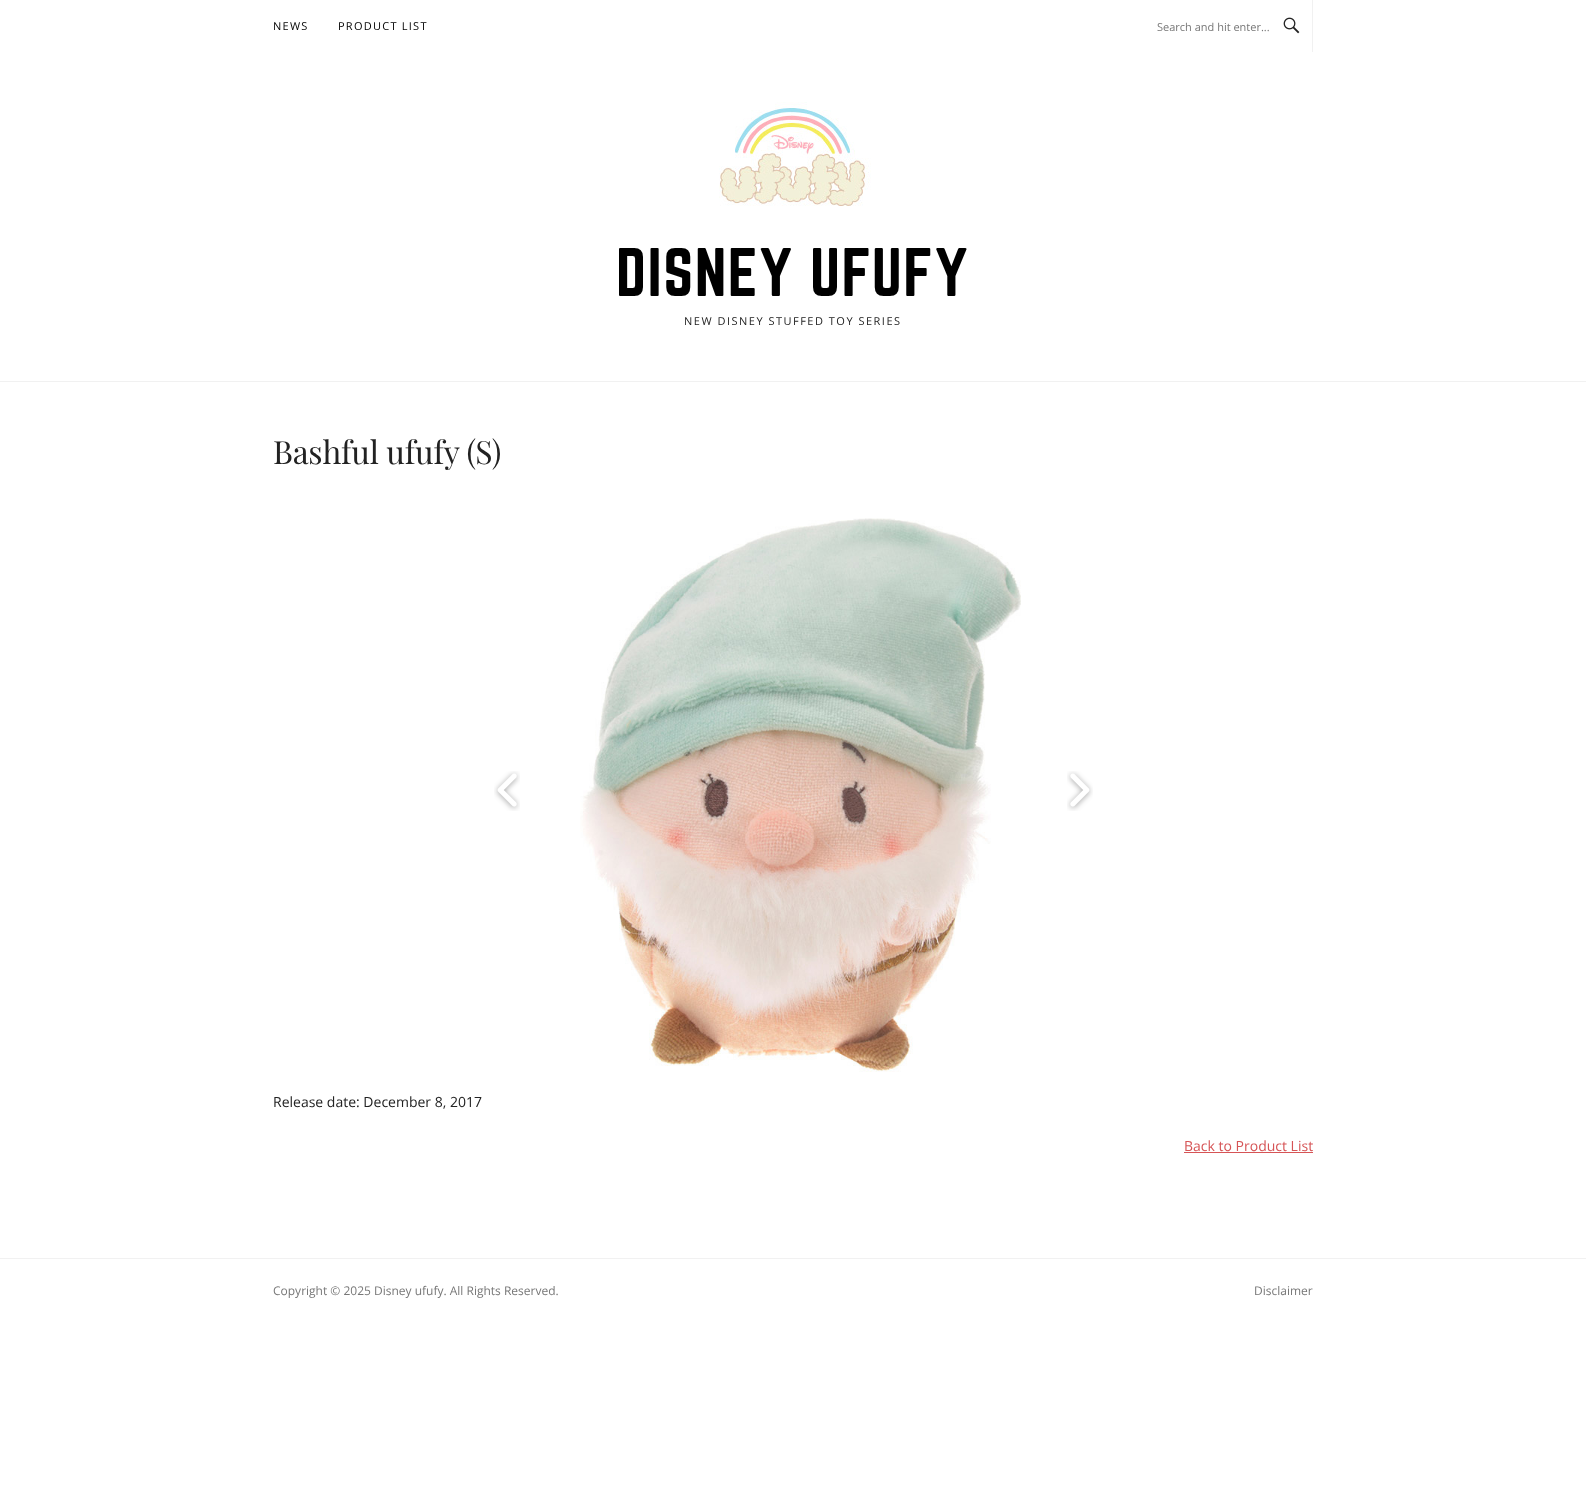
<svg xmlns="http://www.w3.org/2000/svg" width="1586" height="1494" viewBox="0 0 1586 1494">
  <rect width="100%" height="100%" fill="#fff"/>
  <path d="M1312 0h1v52H1312z" fill="#f1f1f1"/>
  <image x="1283" y="17" width="17" height="17" href="img/1.png"/>
  <image x="719" y="102" width="152" height="104" href="img/2.png"/>
  <path d="M0 381h1586v1H0z" fill="#f1f1f1"/>
  <image x="494" y="771" width="26" height="40" href="img/3.png"/>
  <image x="580" y="518" width="441" height="554" href="img/4.png"/>
  <image x="1067" y="771" width="26" height="40" href="img/5.png"/>
  <path d="M1184 1152h129v1H1184z" fill="#d65456"/>
  <path d="M0 1258h1586v1H0z" fill="#f1f1f1"/>
  <g font-family="Open Sans" font-size="11" letter-spacing="1.25" fill="#000">
    <text x="273" y="30">NEWS</text>
    <text x="338" y="30">PRODUCT LIST</text>
  </g>
  <text x="1157" y="31" font-family="Open Sans" font-size="11" fill="#777">Search and hit enter...</text>
  <text x="616" y="296" font-family="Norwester" font-size="60" letter-spacing="1.5" fill="#000">DISNEY UFUFY</text>
  <text x="684" y="325" font-family="Open Sans" font-size="11" letter-spacing="1.5" fill="#222">NEW DISNEY STUFFED TOY SERIES</text>
  <text x="273" y="464" font-family="Playfair Display" font-size="32" letter-spacing="-0.25" fill="#222">Bashful ufufy (S)</text>
  <text x="273" y="1107" font-family="Open Sans" font-size="14" fill="#222">Release date: December 8, 2017</text>
  <text x="1184" y="1151" font-family="Open Sans" font-size="14" fill="#d65456">Back to Product List</text>
  <g font-family="Open Sans" font-size="12" fill="#777">
    <text x="273" y="1295">Copyright © 2025 Disney ufufy. All Rights Reserved.</text>
    <text x="1254" y="1295">Disclaimer</text>
  </g>
</svg>
